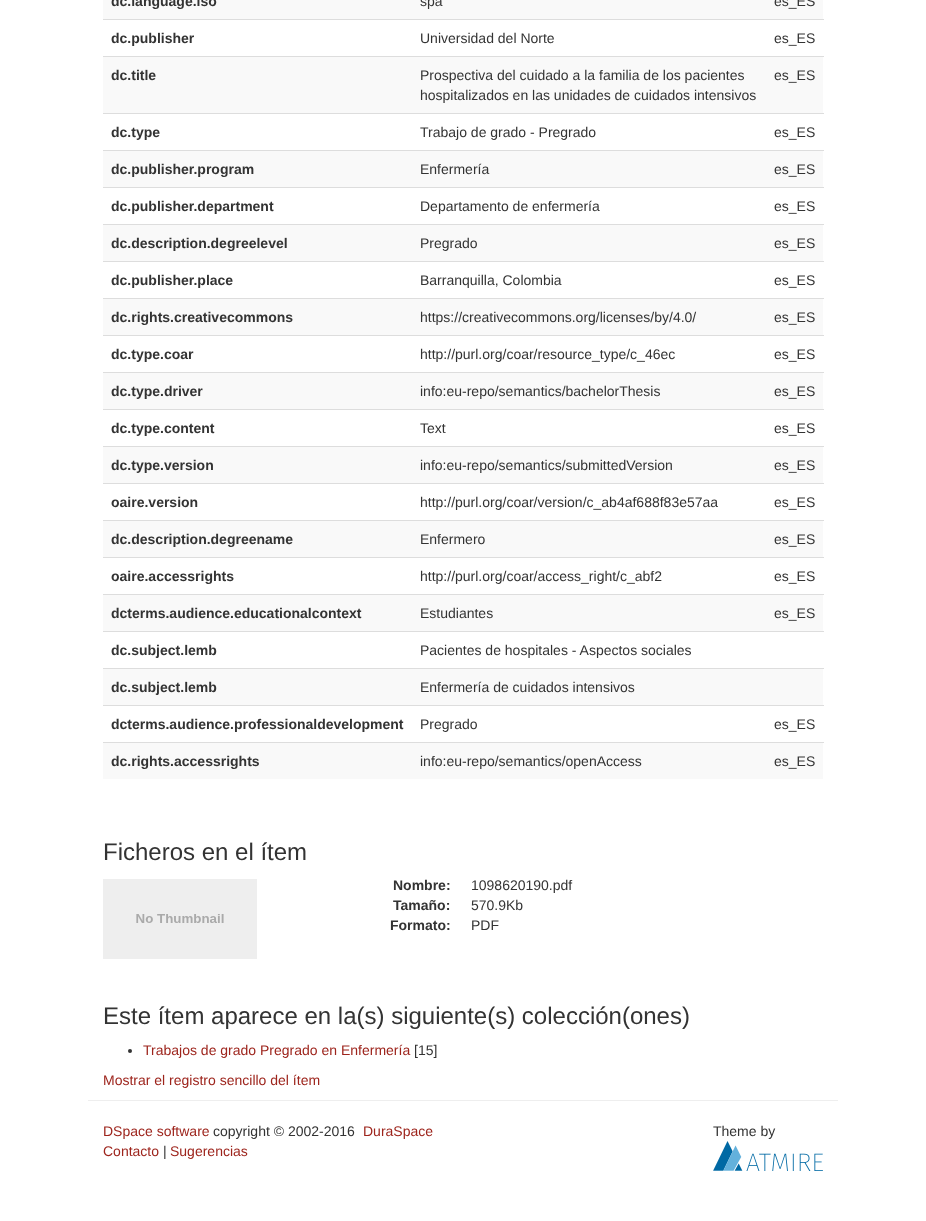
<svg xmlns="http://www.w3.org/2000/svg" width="926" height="1221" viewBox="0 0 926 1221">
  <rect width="100%" height="100%" fill="#fff"/>
  <path d="M103 0h720v19H103z" fill="#f9f9f9"/>
  <path d="M103 19h721v1H103z" fill="#ddd"/>
  <path d="M103 57h720v56H103z" fill="#f9f9f9"/>
  <path d="M103 56h721v1H103z" fill="#ddd"/>
  <path d="M103 113h721v1H103z" fill="#ddd"/>
  <path d="M103 151h720v36H103z" fill="#f9f9f9"/>
  <path d="M103 150h721v1H103z" fill="#ddd"/>
  <path d="M103 187h721v1H103z" fill="#ddd"/>
  <path d="M103 225h720v36H103z" fill="#f9f9f9"/>
  <path d="M103 224h721v1H103z" fill="#ddd"/>
  <path d="M103 261h721v1H103z" fill="#ddd"/>
  <path d="M103 299h720v36H103z" fill="#f9f9f9"/>
  <path d="M103 298h721v1H103z" fill="#ddd"/>
  <path d="M103 335h721v1H103z" fill="#ddd"/>
  <path d="M103 373h720v36H103z" fill="#f9f9f9"/>
  <path d="M103 372h721v1H103z" fill="#ddd"/>
  <path d="M103 409h721v1H103z" fill="#ddd"/>
  <path d="M103 447h720v36H103z" fill="#f9f9f9"/>
  <path d="M103 446h721v1H103z" fill="#ddd"/>
  <path d="M103 483h721v1H103z" fill="#ddd"/>
  <path d="M103 521h720v36H103z" fill="#f9f9f9"/>
  <path d="M103 520h721v1H103z" fill="#ddd"/>
  <path d="M103 557h721v1H103z" fill="#ddd"/>
  <path d="M103 595h720v36H103z" fill="#f9f9f9"/>
  <path d="M103 594h721v1H103z" fill="#ddd"/>
  <path d="M103 631h721v1H103z" fill="#ddd"/>
  <path d="M103 669h720v36H103z" fill="#f9f9f9"/>
  <path d="M103 668h721v1H103z" fill="#ddd"/>
  <path d="M103 705h721v1H103z" fill="#ddd"/>
  <path d="M103 743h720v36H103z" fill="#f9f9f9"/>
  <path d="M103 742h721v1H103z" fill="#ddd"/>
  <image x="103" y="879" width="154" height="80" href="img/1.png"/>
  <circle cx="130" cy="1051" r="2" fill="#333"/>
  <path d="M88 1100h750v1H88z" fill="#eee"/>
  <image x="713" y="1141" width="110" height="30" href="img/2.png"/>
  <text x="111" y="6" font-family="Liberation Sans" font-size="14" font-weight="bold" fill="#333">dc.language.iso</text>
  <g font-family="Liberation Sans" font-size="14" fill="#333">
    <text x="420" y="6">spa</text>
    <text x="774" y="6">es_ES</text>
  </g>
  <text x="111" y="43" font-family="Liberation Sans" font-size="14" font-weight="bold" fill="#333">dc.publisher</text>
  <g font-family="Liberation Sans" font-size="14" fill="#333">
    <text x="420" y="43">Universidad del Norte</text>
    <text x="774" y="43">es_ES</text>
  </g>
  <text x="111" y="80" font-family="Liberation Sans" font-size="14" font-weight="bold" fill="#333">dc.title</text>
  <g font-family="Liberation Sans" font-size="14" fill="#333">
    <text x="420" y="80">Prospectiva del cuidado a la familia de los pacientes</text>
    <text x="420" y="100">hospitalizados en las unidades de cuidados intensivos</text>
    <text x="774" y="80">es_ES</text>
  </g>
  <text x="111" y="137" font-family="Liberation Sans" font-size="14" font-weight="bold" fill="#333">dc.type</text>
  <g font-family="Liberation Sans" font-size="14" fill="#333">
    <text x="420" y="137">Trabajo de grado - Pregrado</text>
    <text x="774" y="137">es_ES</text>
  </g>
  <text x="111" y="174" font-family="Liberation Sans" font-size="14" font-weight="bold" fill="#333">dc.publisher.program</text>
  <g font-family="Liberation Sans" font-size="14" fill="#333">
    <text x="420" y="174">Enfermería</text>
    <text x="774" y="174">es_ES</text>
  </g>
  <text x="111" y="211" font-family="Liberation Sans" font-size="14" font-weight="bold" fill="#333">dc.publisher.department</text>
  <g font-family="Liberation Sans" font-size="14" fill="#333">
    <text x="420" y="211">Departamento de enfermería</text>
    <text x="774" y="211">es_ES</text>
  </g>
  <text x="111" y="248" font-family="Liberation Sans" font-size="14" font-weight="bold" fill="#333">dc.description.degreelevel</text>
  <g font-family="Liberation Sans" font-size="14" fill="#333">
    <text x="420" y="248">Pregrado</text>
    <text x="774" y="248">es_ES</text>
  </g>
  <text x="111" y="285" font-family="Liberation Sans" font-size="14" font-weight="bold" fill="#333">dc.publisher.place</text>
  <g font-family="Liberation Sans" font-size="14" fill="#333">
    <text x="420" y="285">Barranquilla, Colombia</text>
    <text x="774" y="285">es_ES</text>
  </g>
  <text x="111" y="322" font-family="Liberation Sans" font-size="14" font-weight="bold" fill="#333">dc.rights.creativecommons</text>
  <g font-family="Liberation Sans" font-size="14" fill="#333">
    <text x="420" y="322">https://creativecommons.org/licenses/by/4.0/</text>
    <text x="774" y="322">es_ES</text>
  </g>
  <text x="111" y="359" font-family="Liberation Sans" font-size="14" font-weight="bold" fill="#333">dc.type.coar</text>
  <g font-family="Liberation Sans" font-size="14" fill="#333">
    <text x="420" y="359">http://purl.org/coar/resource_type/c_46ec</text>
    <text x="774" y="359">es_ES</text>
  </g>
  <text x="111" y="396" font-family="Liberation Sans" font-size="14" font-weight="bold" fill="#333">dc.type.driver</text>
  <g font-family="Liberation Sans" font-size="14" fill="#333">
    <text x="420" y="396">info:eu-repo/semantics/bachelorThesis</text>
    <text x="774" y="396">es_ES</text>
  </g>
  <text x="111" y="433" font-family="Liberation Sans" font-size="14" font-weight="bold" fill="#333">dc.type.content</text>
  <g font-family="Liberation Sans" font-size="14" fill="#333">
    <text x="420" y="433">Text</text>
    <text x="774" y="433">es_ES</text>
  </g>
  <text x="111" y="470" font-family="Liberation Sans" font-size="14" font-weight="bold" fill="#333">dc.type.version</text>
  <g font-family="Liberation Sans" font-size="14" fill="#333">
    <text x="420" y="470">info:eu-repo/semantics/submittedVersion</text>
    <text x="774" y="470">es_ES</text>
  </g>
  <text x="111" y="507" font-family="Liberation Sans" font-size="14" font-weight="bold" fill="#333">oaire.version</text>
  <g font-family="Liberation Sans" font-size="14" fill="#333">
    <text x="420" y="507">http://purl.org/coar/version/c_ab4af688f83e57aa</text>
    <text x="774" y="507">es_ES</text>
  </g>
  <text x="111" y="544" font-family="Liberation Sans" font-size="14" font-weight="bold" fill="#333">dc.description.degreename</text>
  <g font-family="Liberation Sans" font-size="14" fill="#333">
    <text x="420" y="544">Enfermero</text>
    <text x="774" y="544">es_ES</text>
  </g>
  <text x="111" y="581" font-family="Liberation Sans" font-size="14" font-weight="bold" fill="#333">oaire.accessrights</text>
  <g font-family="Liberation Sans" font-size="14" fill="#333">
    <text x="420" y="581">http://purl.org/coar/access_right/c_abf2</text>
    <text x="774" y="581">es_ES</text>
  </g>
  <text x="111" y="618" font-family="Liberation Sans" font-size="14" font-weight="bold" fill="#333">dcterms.audience.educationalcontext</text>
  <g font-family="Liberation Sans" font-size="14" fill="#333">
    <text x="420" y="618">Estudiantes</text>
    <text x="774" y="618">es_ES</text>
  </g>
  <text x="111" y="655" font-family="Liberation Sans" font-size="14" font-weight="bold" fill="#333">dc.subject.lemb</text>
  <text x="420" y="655" font-family="Liberation Sans" font-size="14" fill="#333">Pacientes de hospitales - Aspectos sociales</text>
  <text x="111" y="692" font-family="Liberation Sans" font-size="14" font-weight="bold" fill="#333">dc.subject.lemb</text>
  <text x="420" y="692" font-family="Liberation Sans" font-size="14" fill="#333">Enfermería de cuidados intensivos</text>
  <text x="111" y="729" font-family="Liberation Sans" font-size="14" font-weight="bold" fill="#333">dcterms.audience.professionaldevelopment</text>
  <g font-family="Liberation Sans" font-size="14" fill="#333">
    <text x="420" y="729">Pregrado</text>
    <text x="774" y="729">es_ES</text>
  </g>
  <text x="111" y="766" font-family="Liberation Sans" font-size="14" font-weight="bold" fill="#333">dc.rights.accessrights</text>
  <g font-family="Liberation Sans" font-size="14" fill="#333">
    <text x="420" y="766">info:eu-repo/semantics/openAccess</text>
    <text x="774" y="766">es_ES</text>
  </g>
  <text x="103" y="860" font-family="Liberation Sans" font-size="24" fill="#333">Ficheros en el ítem</text>
  <text x="393" y="890" font-family="Liberation Sans" font-size="14" font-weight="bold" fill="#333">Nombre:</text>
  <text x="471" y="890" font-family="Liberation Sans" font-size="14" fill="#333">1098620190.pdf</text>
  <text x="393" y="910" font-family="Liberation Sans" font-size="14" font-weight="bold" fill="#333">Tamaño:</text>
  <text x="471" y="910" font-family="Liberation Sans" font-size="14" fill="#333">570.9Kb</text>
  <text x="390" y="930" font-family="Liberation Sans" font-size="14" font-weight="bold" fill="#333">Formato:</text>
  <text x="471" y="930" font-family="Liberation Sans" font-size="14" fill="#333">PDF</text>
  <text x="103" y="1024" font-family="Liberation Sans" font-size="24" fill="#333">Este ítem aparece en la(s) siguiente(s) colección(ones)</text>
  <text x="143" y="1055" font-family="Liberation Sans" font-size="14" fill="#9d241c">Trabajos de grado Pregrado en Enfermería</text>
  <text x="414" y="1055" font-family="Liberation Sans" font-size="14" fill="#333">[15]</text>
  <g font-family="Liberation Sans" font-size="14" fill="#9d241c">
    <text x="103" y="1085">Mostrar el registro sencillo del ítem</text>
    <text x="103" y="1136">DSpace software</text>
  </g>
  <text x="213" y="1136" font-family="Liberation Sans" font-size="14" fill="#333">copyright © 2002-2016</text>
  <g font-family="Liberation Sans" font-size="14" fill="#9d241c">
    <text x="363" y="1136">DuraSpace</text>
    <text x="103" y="1156">Contacto</text>
  </g>
  <text x="163" y="1156" font-family="Liberation Sans" font-size="14" fill="#333">|</text>
  <text x="170" y="1156" font-family="Liberation Sans" font-size="14" fill="#9d241c">Sugerencias</text>
  <text x="713" y="1136" font-family="Liberation Sans" font-size="14" fill="#333">Theme by</text>
</svg>
